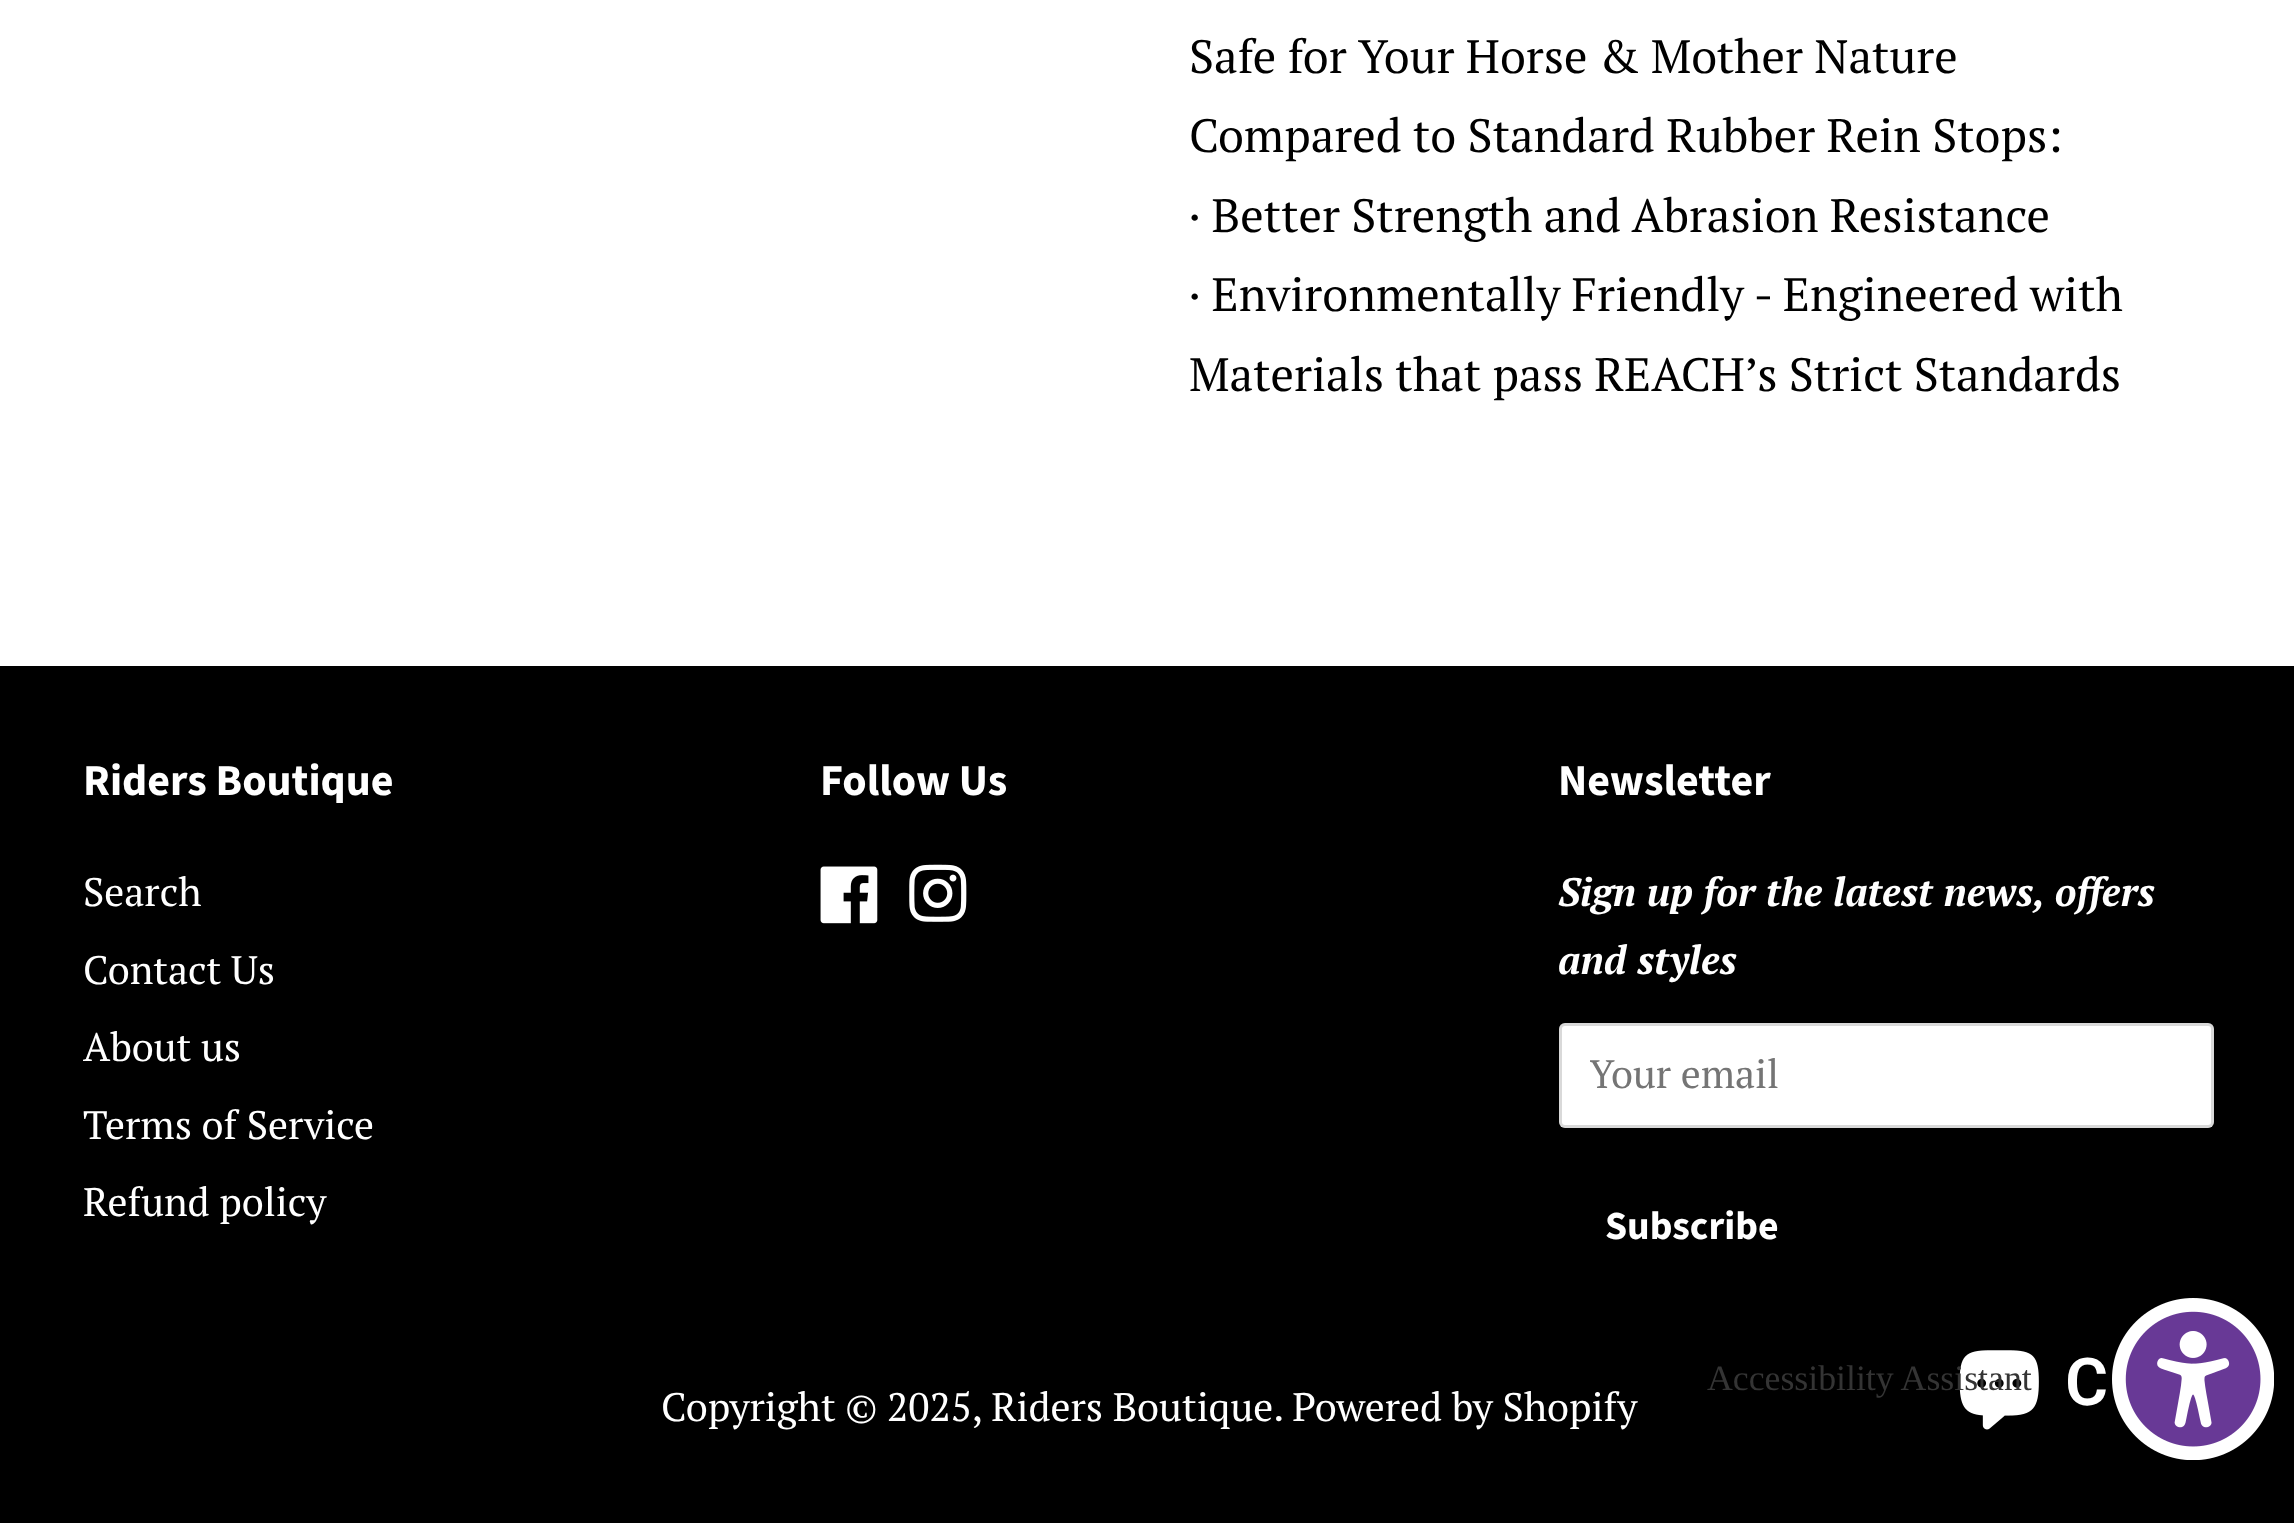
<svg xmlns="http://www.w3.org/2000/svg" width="2294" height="1523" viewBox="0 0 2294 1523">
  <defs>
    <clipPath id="clip1"><path d="M1590 1048h594v52H1590z"/></clipPath>
  </defs>
  <rect width="100%" height="100%" fill="#fff"/>
  <path d="M0 666h2294v857H0z" fill="#000"/>
  <image x="820" y="866" width="58" height="58" href="img/1.png"/>
  <image x="909" y="864" width="58" height="58" href="img/2.png"/>
  <rect x="1559" y="1023" width="655" height="105" rx="6" fill="#fff"/>
  <rect x="1560.5" y="1024.5" width="652" height="102" rx="4.5" fill="none" stroke="#00000026" stroke-width="3"/>
  <image x="1959" y="1350" width="80" height="80" href="img/3.png"/>
  <rect x="2112" y="1312" width="162" height="162" rx="81" fill="#0000004d" filter="blur(20.5px)"/>
  <image x="2112" y="1298" width="162" height="162" href="img/4.png"/>
  <g font-family="PT Serif" font-size="46.75" fill="#000">
    <text x="1189" y="73">Safe for Your Horse &amp; Mother Nature</text>
    <text x="1189" y="152">Compared to Standard Rubber Rein Stops:</text>
    <text x="1189" y="232">· Better Strength and Abrasion Resistance</text>
    <text x="1189" y="311">· Environmentally Friendly - Engineered with</text>
    <text x="1189" y="391">Materials that pass REACH’s Strict Standards</text>
  </g>
  <text x="83" y="795" font-family="Source Sans Pro" font-size="44" font-weight="bold" fill="#fff">Riders Boutique</text>
  <g font-family="PT Serif" font-size="39.75" fill="#fff">
    <text x="83" y="906">Search</text>
    <text x="83" y="984">Contact Us</text>
    <text x="83" y="1061">About us</text>
    <text x="83" y="1139">Terms of Service</text>
    <text x="83" y="1216">Refund policy</text>
  </g>
  <g font-family="Source Sans Pro" font-size="44" font-weight="bold" fill="#fff">
    <text x="820" y="795">Follow Us</text>
    <text x="1558" y="795">Newsletter</text>
  </g>
  <g font-family="PT Serif" font-size="39.75" font-weight="bold" font-style="italic" fill="#fff">
    <text x="1558" y="906">Sign up for the latest news, offers</text>
    <text x="1558" y="974">and styles</text>
  </g>
  <g clip-path="url(#clip1)">
    <text x="1589" y="1088" font-family="PT Serif" font-size="39.75" fill="#757575">Your email</text>
  </g>
  <text x="1605" y="1239" font-family="Source Sans Pro" font-size="39.75" font-weight="bold" fill="#fff">Subscribe</text>
  <text x="661" y="1421" font-family="PT Serif" font-size="39.75" fill="#fff">Copyright © 2025, Riders Boutique. Powered by Shopify</text>
  <text x="2065" y="1405" font-family="Roboto" font-size="66" font-weight="600" fill="#fff">C</text>
  <text x="1707" y="1390" font-family="Liberation Serif" font-size="35.75" fill="#343434">Accessibility Assistant</text>
</svg>
